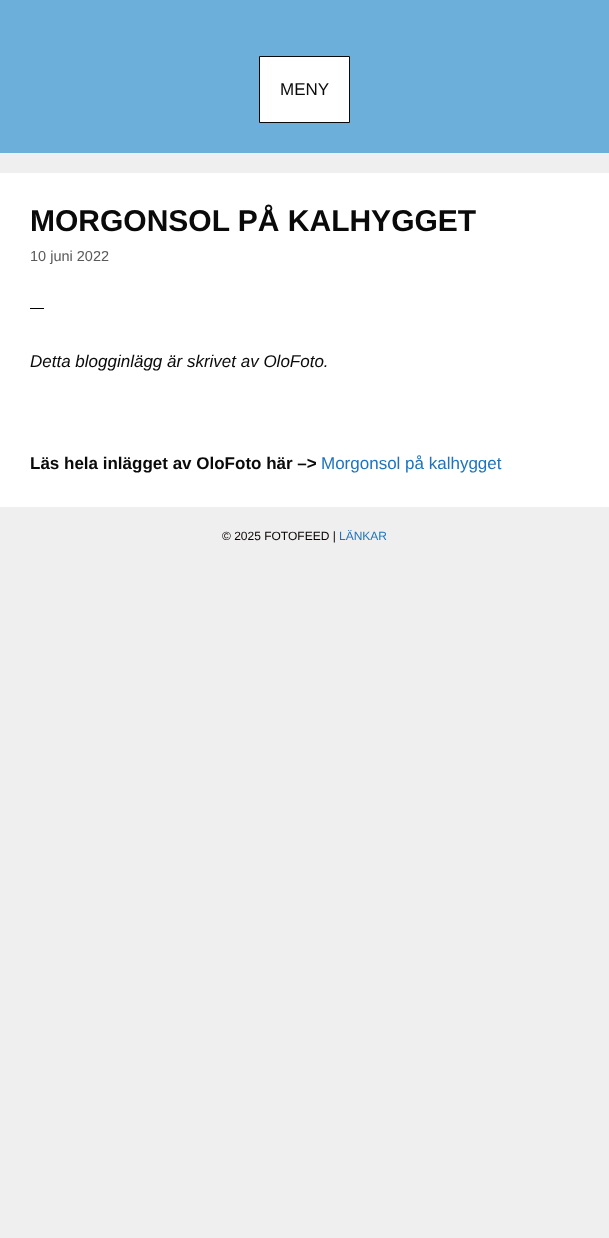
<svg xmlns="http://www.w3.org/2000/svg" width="609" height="1238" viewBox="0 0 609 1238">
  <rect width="100%" height="100%" fill="#efefef"/>
  <path d="M0 0h609v153H0z" fill="#6dafdb"/>
  <path d="M259.5 56.5h90v66H259.5z" fill="#fff" stroke="#0a0a0a"/>
  <path d="M0 173h609v334H0z" fill="#fff"/>
  <path d="M30 308h14v1H30z" fill="#000"/>
  <text x="280" y="95" font-family="Arimo" font-size="17" fill="#0a0a0a">MENY</text>
  <text x="30" y="231" font-family="Arimo" font-size="30" font-weight="bold" fill="#0a0a0a">MORGONSOL PÅ KALHYGGET</text>
  <text x="30" y="261" font-family="Arimo" font-size="14.5" fill="#595959">10 juni 2022</text>
  <text x="30" y="367" font-family="Arimo" font-size="17" font-style="italic" fill="#0a0a0a">Detta blogginlägg är skrivet av OloFoto.</text>
  <text x="30" y="469" font-family="Arimo" font-size="17" font-weight="bold" fill="#0a0a0a">Läs hela inlägget av OloFoto här –&gt;</text>
  <text x="321" y="469" font-family="Arimo" font-size="17" fill="#1e73be">Morgonsol på kalhygget</text>
  <text x="222" y="540" font-family="Arimo" font-size="12" fill="#0a0000">© 2025 FOTOFEED |</text>
  <text x="339" y="540" font-family="Arimo" font-size="12" fill="#1e73be">LÄNKAR</text>
</svg>
